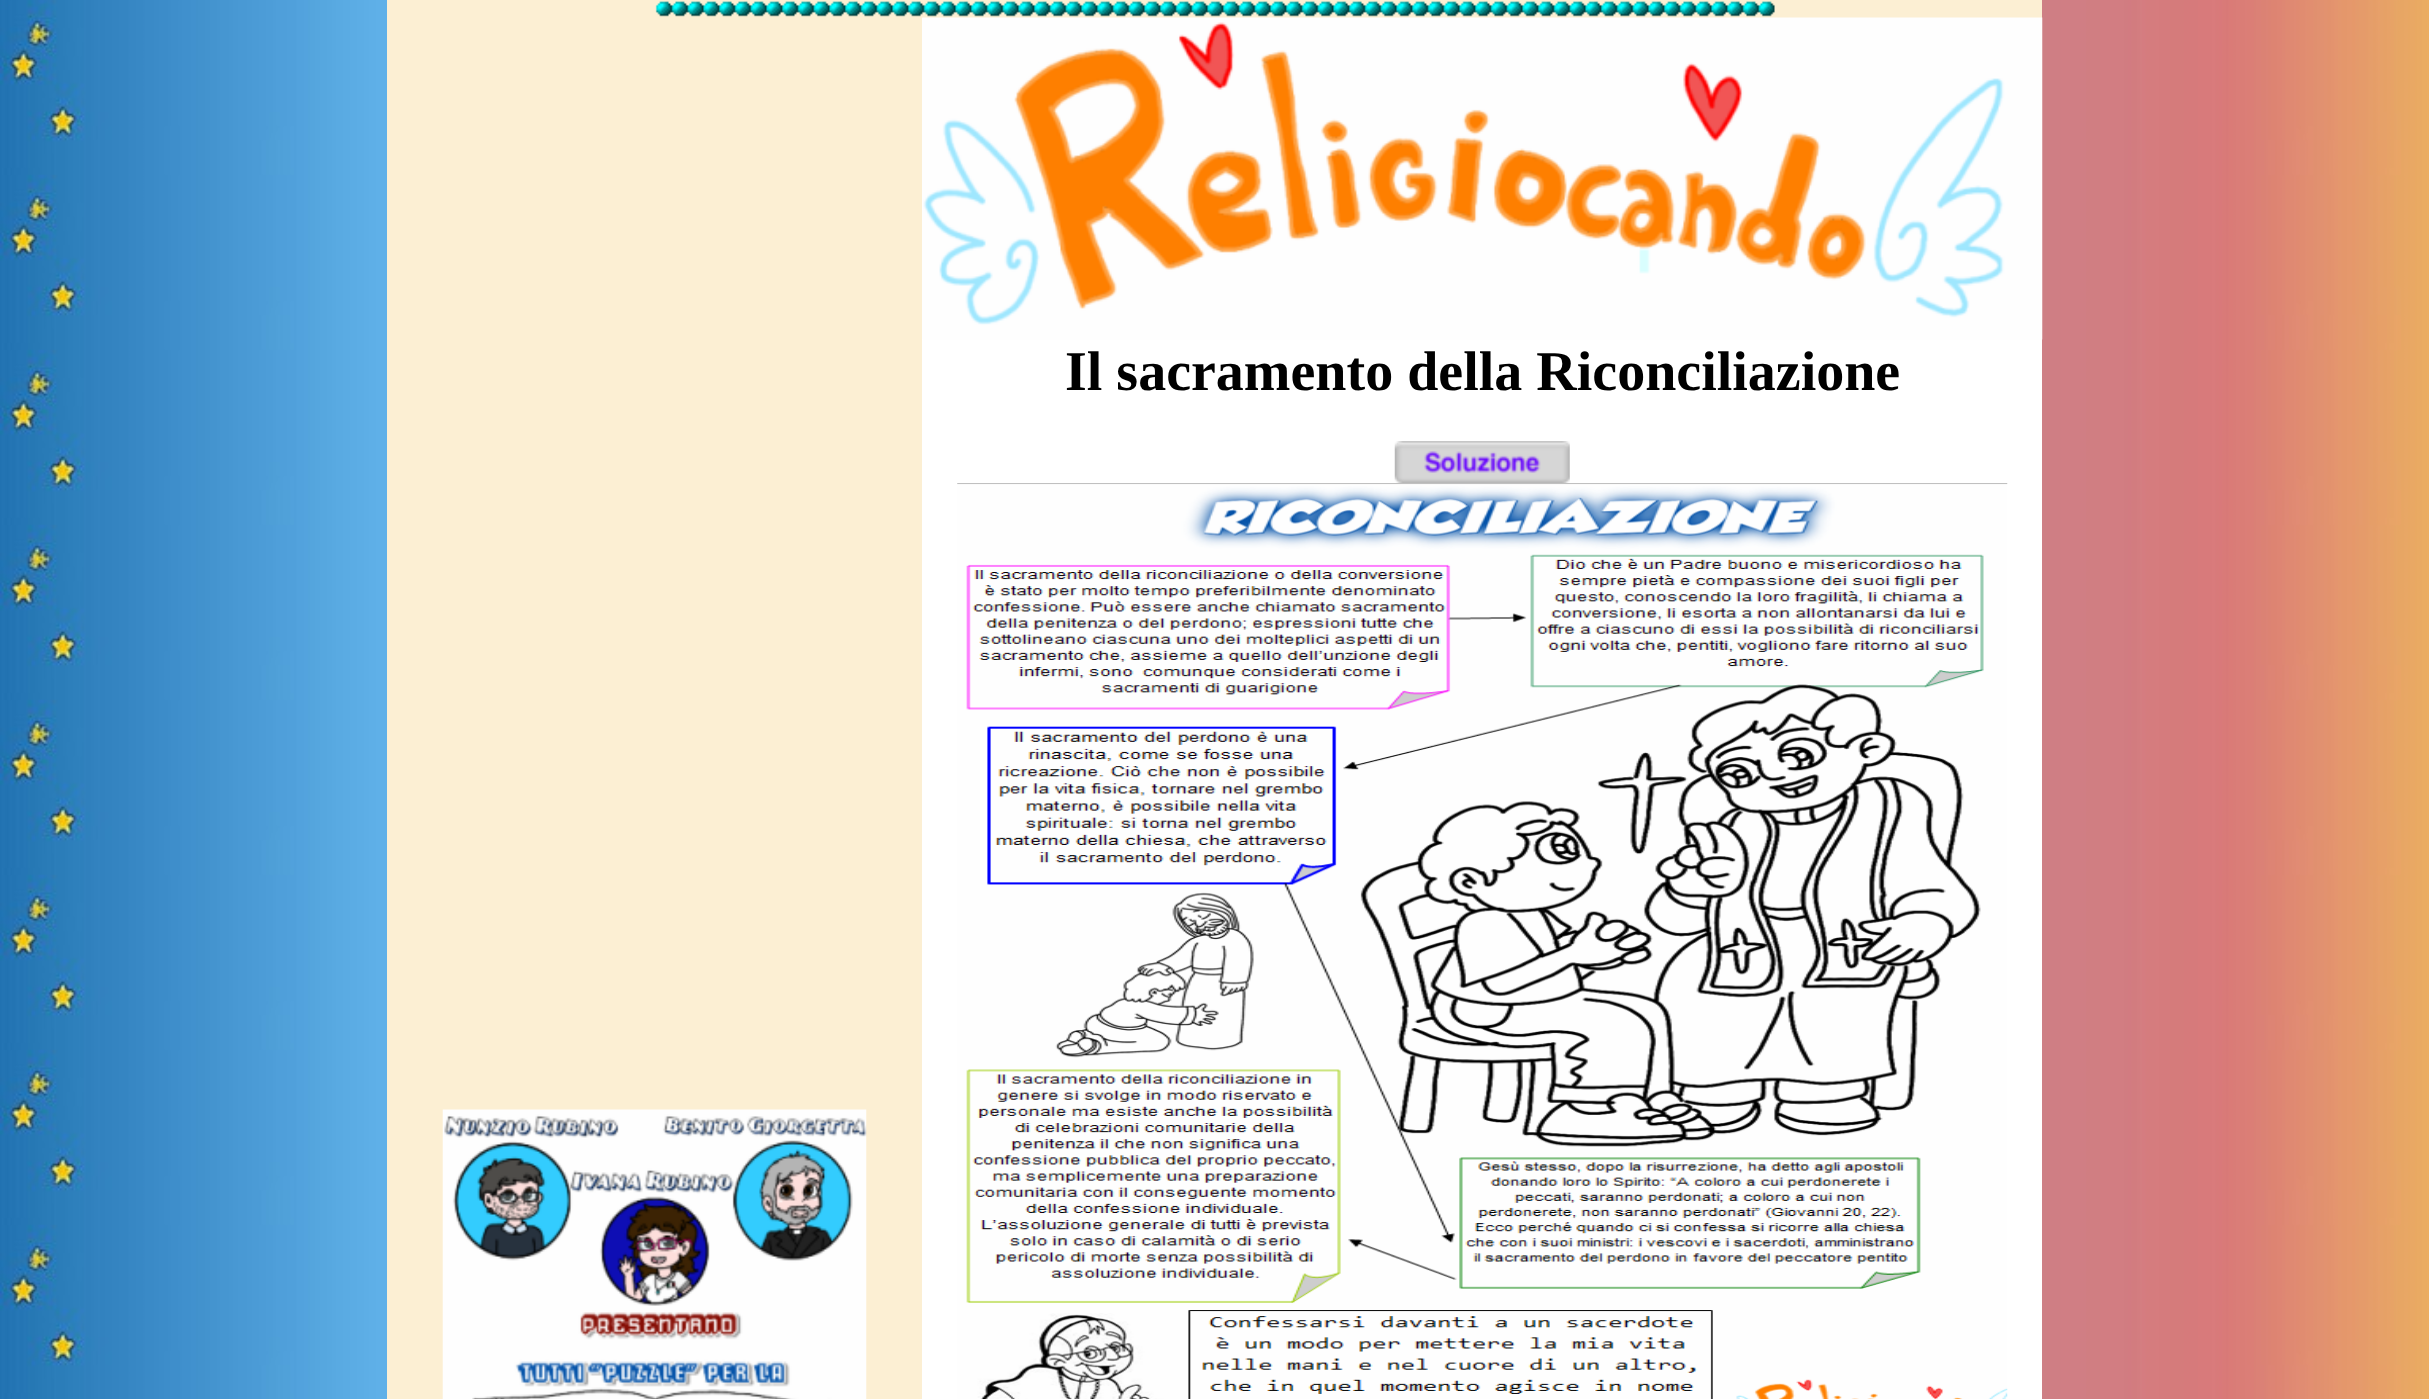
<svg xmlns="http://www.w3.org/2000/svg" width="2429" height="1399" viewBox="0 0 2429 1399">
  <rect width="100%" height="100%" fill="#fff"/>
  <image x="0" y="0" width="2429" height="1399" href="img/1.png"/>
  <path d="M387 0h1655v1399H387z" fill="#fcefd3"/>
  <image x="655" y="1" width="1120" height="16" href="img/2.png"/>
  <path d="M922 18h1120v1381H922z" fill="#fff"/>
  <image x="922" y="17" width="1121" height="323" href="img/3.png"/>
  <image x="1394" y="441" width="176" height="42" href="img/4.png"/>
  <image x="957" y="483" width="1051" height="916" href="img/5.png"/>
  <image x="442" y="1109" width="425" height="290" href="img/6.png"/>
  <text x="1065" y="390" font-family="Liberation Serif" font-size="56" font-weight="bold" fill="#000">Il sacramento della Riconciliazione</text>
</svg>
